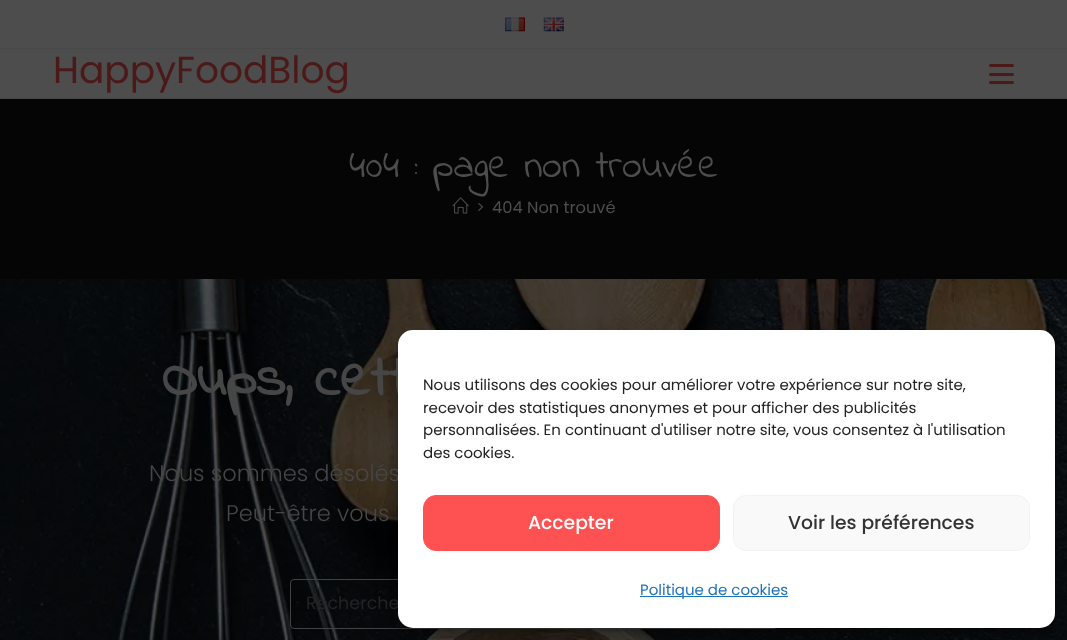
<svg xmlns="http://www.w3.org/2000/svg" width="1067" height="640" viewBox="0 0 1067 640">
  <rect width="100%" height="100%" fill="#fff"/>
  <image x="0" y="279" width="1067" height="361" href="img/1.png"/>
  <path d="M0 0h1067v48H0z" fill="#4d4d4d"/>
  <path d="M0 48h1067v1H0z" fill="#484848"/>
  <image x="505" y="17" width="20" height="15" href="img/2.png"/>
  <image x="543" y="17" width="21" height="15" href="img/3.png"/>
  <path d="M0 49h1067v49H0z" fill="#4d4d4d"/>
  <path d="M0 98h1067v1H0z" fill="#484848"/>
  <rect x="989" y="73" width="25" height="3" rx="1.5" fill="#4c1919"/>
  <rect x="989" y="64" width="25" height="3" rx="1.5" fill="#4c1919"/>
  <rect x="989" y="81" width="25" height="3" rx="1.5" fill="#4c1919"/>
  <path d="M0 99h1067v180H0z" fill="#050505"/>
  <image x="452" y="197" width="17" height="17" href="img/4.png"/>
  <rect x="290.5" y="579.5" width="487" height="49" rx="3.5" fill="none" stroke="#424242"/>
  <rect x="398" y="338" width="657" height="297" rx="15" fill="#0000003b" filter="blur(4px)"/>
  <rect x="398" y="343" width="657" height="297" rx="15" fill="#00000030" filter="blur(12.5px)"/>
  <text x="53" y="83" font-family="Poppins" font-size="37.5" fill="#4c1919">HappyFoodBlog</text>
  <text x="349" y="177" font-family="Indie Flower" font-size="40" fill="#4d4d4d">404 : page non trouvée</text>
  <text x="476" y="213" font-family="Poppins" font-size="16.25" fill="#464646">&gt;</text>
  <text x="492" y="213" font-family="Poppins" font-size="16.25" fill="#4d4d4d">404 Non trouvé</text>
  <text x="162" y="395" font-family="Indie Flower" font-size="57.5" font-weight="bold" fill="#464646">Oups, cett</text>
  <g font-family="Poppins" font-size="22.5" font-weight="300" fill="#464646">
    <text x="149" y="481">Nous sommes désolés</text>
    <text x="226" y="521">Peut-être vous</text>
  </g>
  <text x="306" y="609" font-family="Poppins" font-size="17.5" fill="#232323">Recherche</text>
  <rect x="398" y="330" width="657" height="298" rx="15" fill="#fff"/>
  <g font-family="Poppins" font-size="15" fill="#232323">
    <text x="423" y="390">Nous utilisons des cookies pour améliorer votre expérience sur notre site,</text>
    <text x="423" y="413">recevoir des statistiques anonymes et pour afficher des publicités</text>
    <text x="423" y="435">personnalisées. En continuant d'utiliser notre site, vous consentez à l'utilisation</text>
    <text x="423" y="458">des cookies.</text>
  </g>
  <rect x="423.5" y="495.5" width="296" height="55" rx="12.5" fill="#fe5252" stroke="#fe5252"/>
  <text x="528" y="529" font-family="Poppins" font-size="18.75" font-weight="500" fill="#fff">Accepter</text>
  <rect x="733.5" y="495.5" width="296" height="55" rx="12.5" fill="#f9f9f9" stroke="#f2f2f2"/>
  <text x="788" y="529" font-family="Poppins" font-size="18.75" font-weight="500" fill="#333">Voir les préférences</text>
  <path d="M640 596h148v1H640z" fill="#1e73be"/>
  <text x="640" y="595" font-family="Poppins" font-size="15" fill="#1e73be">Politique de cookies</text>
</svg>
